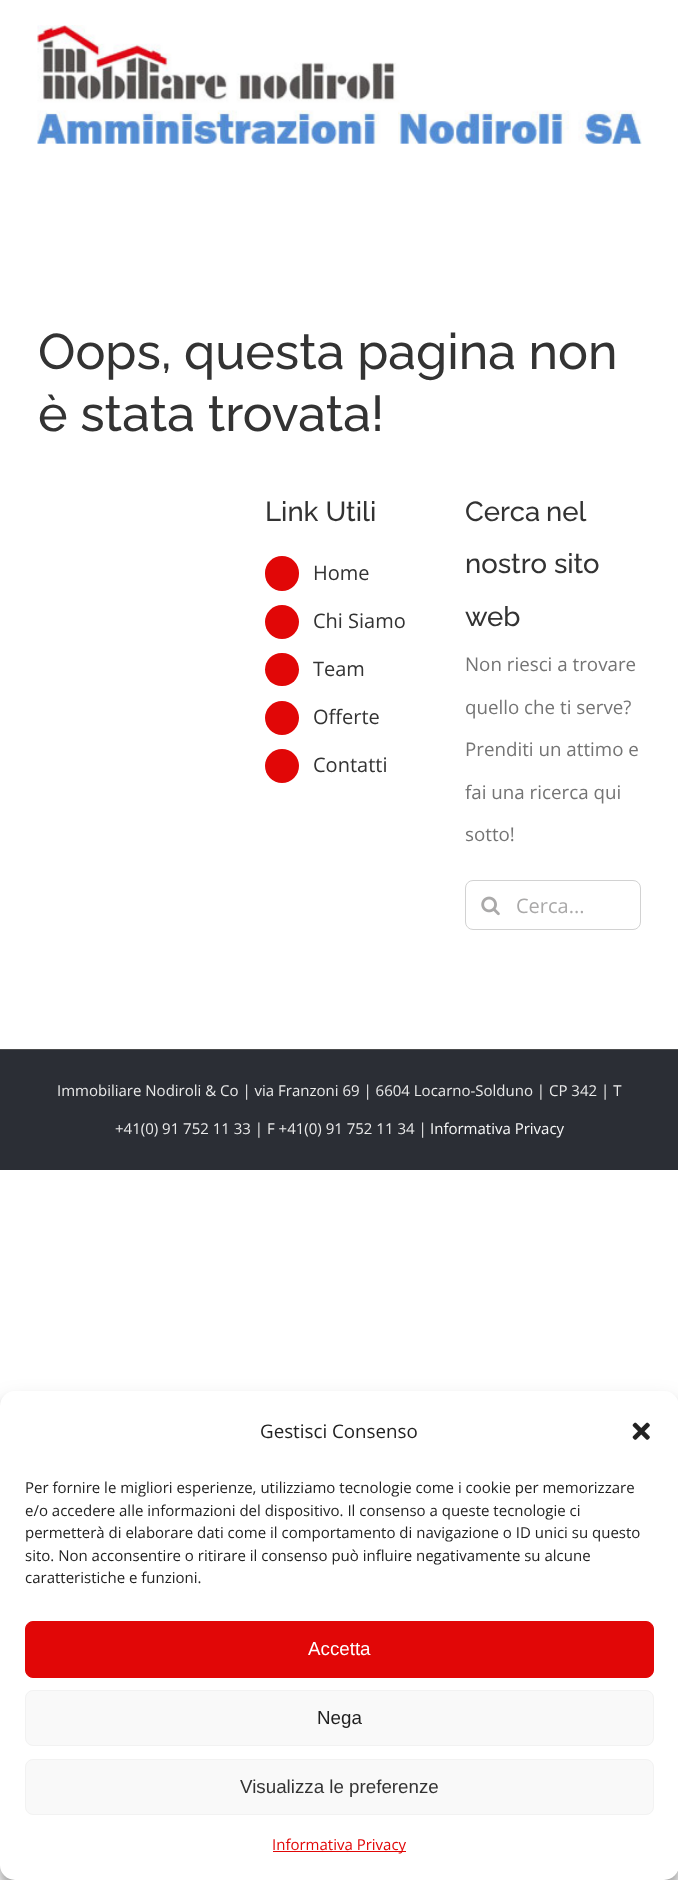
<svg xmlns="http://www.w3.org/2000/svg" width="678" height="1880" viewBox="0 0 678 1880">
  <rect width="100%" height="100%" fill="#fff"/>
  <image x="37" y="25" width="605" height="119" href="img/1.png"/>
  <rect x="265" y="556" width="34" height="35" rx="17" fill="#e10707"/>
  <circle cx="282" cy="622" r="17" fill="#e10707"/>
  <rect x="265" y="653" width="34" height="33" rx="16.5" fill="#e10707"/>
  <circle cx="282" cy="718" r="17" fill="#e10707"/>
  <circle cx="282" cy="766" r="17" fill="#e10707"/>
  <rect x="465.5" y="880.5" width="175" height="49" rx="7.5" fill="none" stroke="#d2d2d2"/>
  <image x="481" y="896" width="19" height="20" href="img/2.png"/>
  <path d="M0 1050h678v120H0z" fill="#2b2e35"/>
  <path d="M0 1049h678v1H0z" fill="#4b4c4d"/>
  <rect y="1399" width="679" height="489" rx="15" fill="#0000003b" filter="blur(4px)"/>
  <rect y="1404" width="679" height="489" rx="15" fill="#00000030" filter="blur(12.5px)"/>
  <rect y="1391" width="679" height="489" rx="15" fill="#fff"/>
  <image x="632" y="1422" width="18" height="18" href="img/3.png"/>
  <rect x="25.5" y="1621.5" width="628" height="56" rx="7.5" fill="#e10707" stroke="#e10707"/>
  <rect x="25.5" y="1690.5" width="628" height="55" rx="7.5" fill="#f9f9f9" stroke="#f2f2f2"/>
  <rect x="25.5" y="1759.5" width="628" height="55" rx="7.5" fill="#f9f9f9" stroke="#f2f2f2"/>
  <path d="M273 1851h133v1H273z" fill="#e10707"/>
  <g font-family="Raleway" font-size="50" font-weight="100" fill="#333">
    <text x="38" y="369">Oops, questa pagina non</text>
    <text x="38" y="431">è stata trovata!</text>
  </g>
  <text x="265" y="521" font-family="Raleway" font-size="27.5" font-weight="100" fill="#333">Link Utili</text>
  <g font-family="Open Sans" font-size="20" fill="#333">
    <text x="313" y="580">Home</text>
    <text x="313" y="628">Chi Siamo</text>
    <text x="313" y="676">Team</text>
    <text x="313" y="724">Offerte</text>
    <text x="313" y="772">Contatti</text>
  </g>
  <g font-family="Raleway" font-size="27.5" font-weight="100" fill="#333">
    <text x="465" y="521" word-spacing="-1">Cerca nel</text>
    <text x="465" y="573">nostro sito</text>
    <text x="465" y="626">web</text>
  </g>
  <g font-family="Open Sans" font-size="18.75" fill="#747474">
    <text x="465" y="671">Non riesci a trovare</text>
    <text x="465" y="714">quello che ti serve?</text>
    <text x="465" y="756">Prenditi un attimo e</text>
    <text x="465" y="799">fai una ricerca qui</text>
    <text x="465" y="841">sotto!</text>
  </g>
  <text x="516" y="913" font-family="Open Sans" font-size="20" fill="#aaa9a9">Cerca...</text>
  <g font-family="Open Sans" font-size="15" fill="#eaeaea">
    <text x="57" y="1096">Immobiliare Nodiroli &amp; Co | via Franzoni 69 | 6604 Locarno-Solduno | CP 342 | T</text>
    <text x="115" y="1134">+41(0) 91 752 11 33 | F +41(0) 91 752 11 34 |</text>
  </g>
  <text x="430" y="1134" font-family="Open Sans" font-size="15" fill="#f9f9f9">Informativa Privacy</text>
  <text x="260" y="1438" font-family="Open Sans" font-size="18.75" fill="#222">Gestisci Consenso</text>
  <g font-family="Open Sans" font-size="15" fill="#222">
    <text x="25" y="1493">Per fornire le migliori esperienze, utilizziamo tecnologie come i cookie per memorizzare</text>
    <text x="25" y="1516">e/o accedere alle informazioni del dispositivo. Il consenso a queste tecnologie ci</text>
    <text x="25" y="1538">permetterà di elaborare dati come il comportamento di navigazione o ID unici su questo</text>
    <text x="25" y="1561">sito. Non acconsentire o ritirare il consenso può influire negativamente su alcune</text>
    <text x="25" y="1583">caratteristiche e funzioni.</text>
  </g>
  <text x="308" y="1655" font-family="Liberation Sans" font-size="18.75" fill="#fff">Accetta</text>
  <text x="317" y="1724" font-family="Liberation Sans" font-size="18.75" fill="#222">Nega</text>
  <text x="240" y="1793" font-family="Liberation Sans" font-size="18.75" fill="#333">Visualizza le preferenze</text>
  <text x="272" y="1850" font-family="Open Sans" font-size="15" fill="#e10707">Informativa Privacy</text>
</svg>
